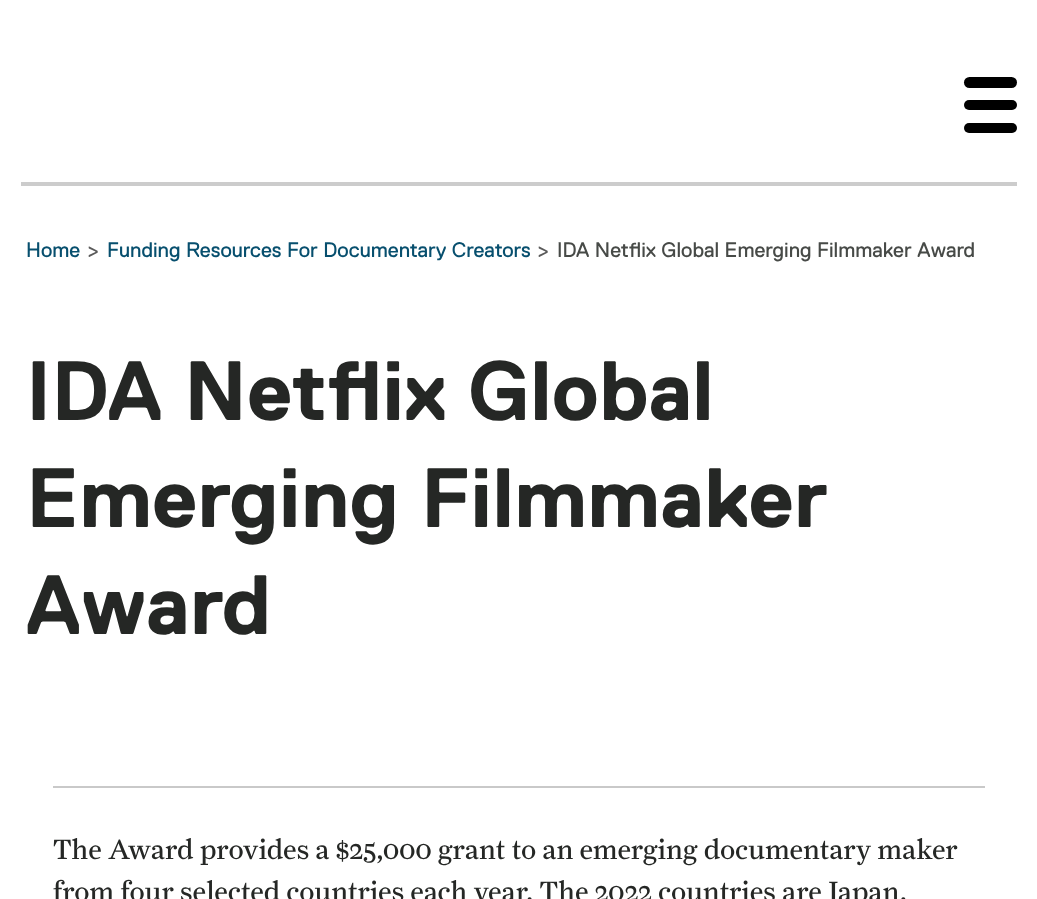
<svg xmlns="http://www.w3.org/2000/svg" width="1037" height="899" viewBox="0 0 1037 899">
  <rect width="100%" height="100%" fill="#fff"/>
  <rect x="964" y="77" width="53" height="11" rx="5.5" fill="#000"/>
  <rect x="964" y="100" width="53" height="10" rx="5" fill="#000"/>
  <rect x="964" y="123" width="53" height="10" rx="5" fill="#000"/>
  <path d="M21 182h996v4H21z" fill="#ccc"/>
  <path d="M53 786h932v2H53z" fill="#c9c9c9"/>
  <text x="26" y="257" font-family="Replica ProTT" font-size="21" fill="#074f6e">Home</text>
  <text x="87" y="257" font-family="Replica ProTT" font-size="21" fill="#5a5a5a">&gt;</text>
  <text x="107" y="257" font-family="Replica ProTT" font-size="21" fill="#074f6e">Funding Resources For Documentary Creators</text>
  <text x="537" y="257" font-family="Replica ProTT" font-size="21" fill="#5a5a5a">&gt;</text>
  <text x="557" y="257" font-family="Replica ProTT" font-size="21" fill="#474a47">IDA Netflix Global Emerging Filmmaker Award</text>
  <g font-family="Replica ProTT" font-size="84" font-weight="bold" fill="#252725">
    <text x="26" y="420">IDA Netflix Global</text>
    <text x="26" y="527">Emerging Filmmaker</text>
    <text x="26" y="634">Award</text>
  </g>
  <g font-family="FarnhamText" font-size="28" letter-spacing="0.25" fill="#252725">
    <text x="53" y="859">The Award provides a $25,000 grant to an emerging documentary maker</text>
    <text x="53" y="901">from four selected countries each year. The 2022 countries are Japan,</text>
  </g>
</svg>
